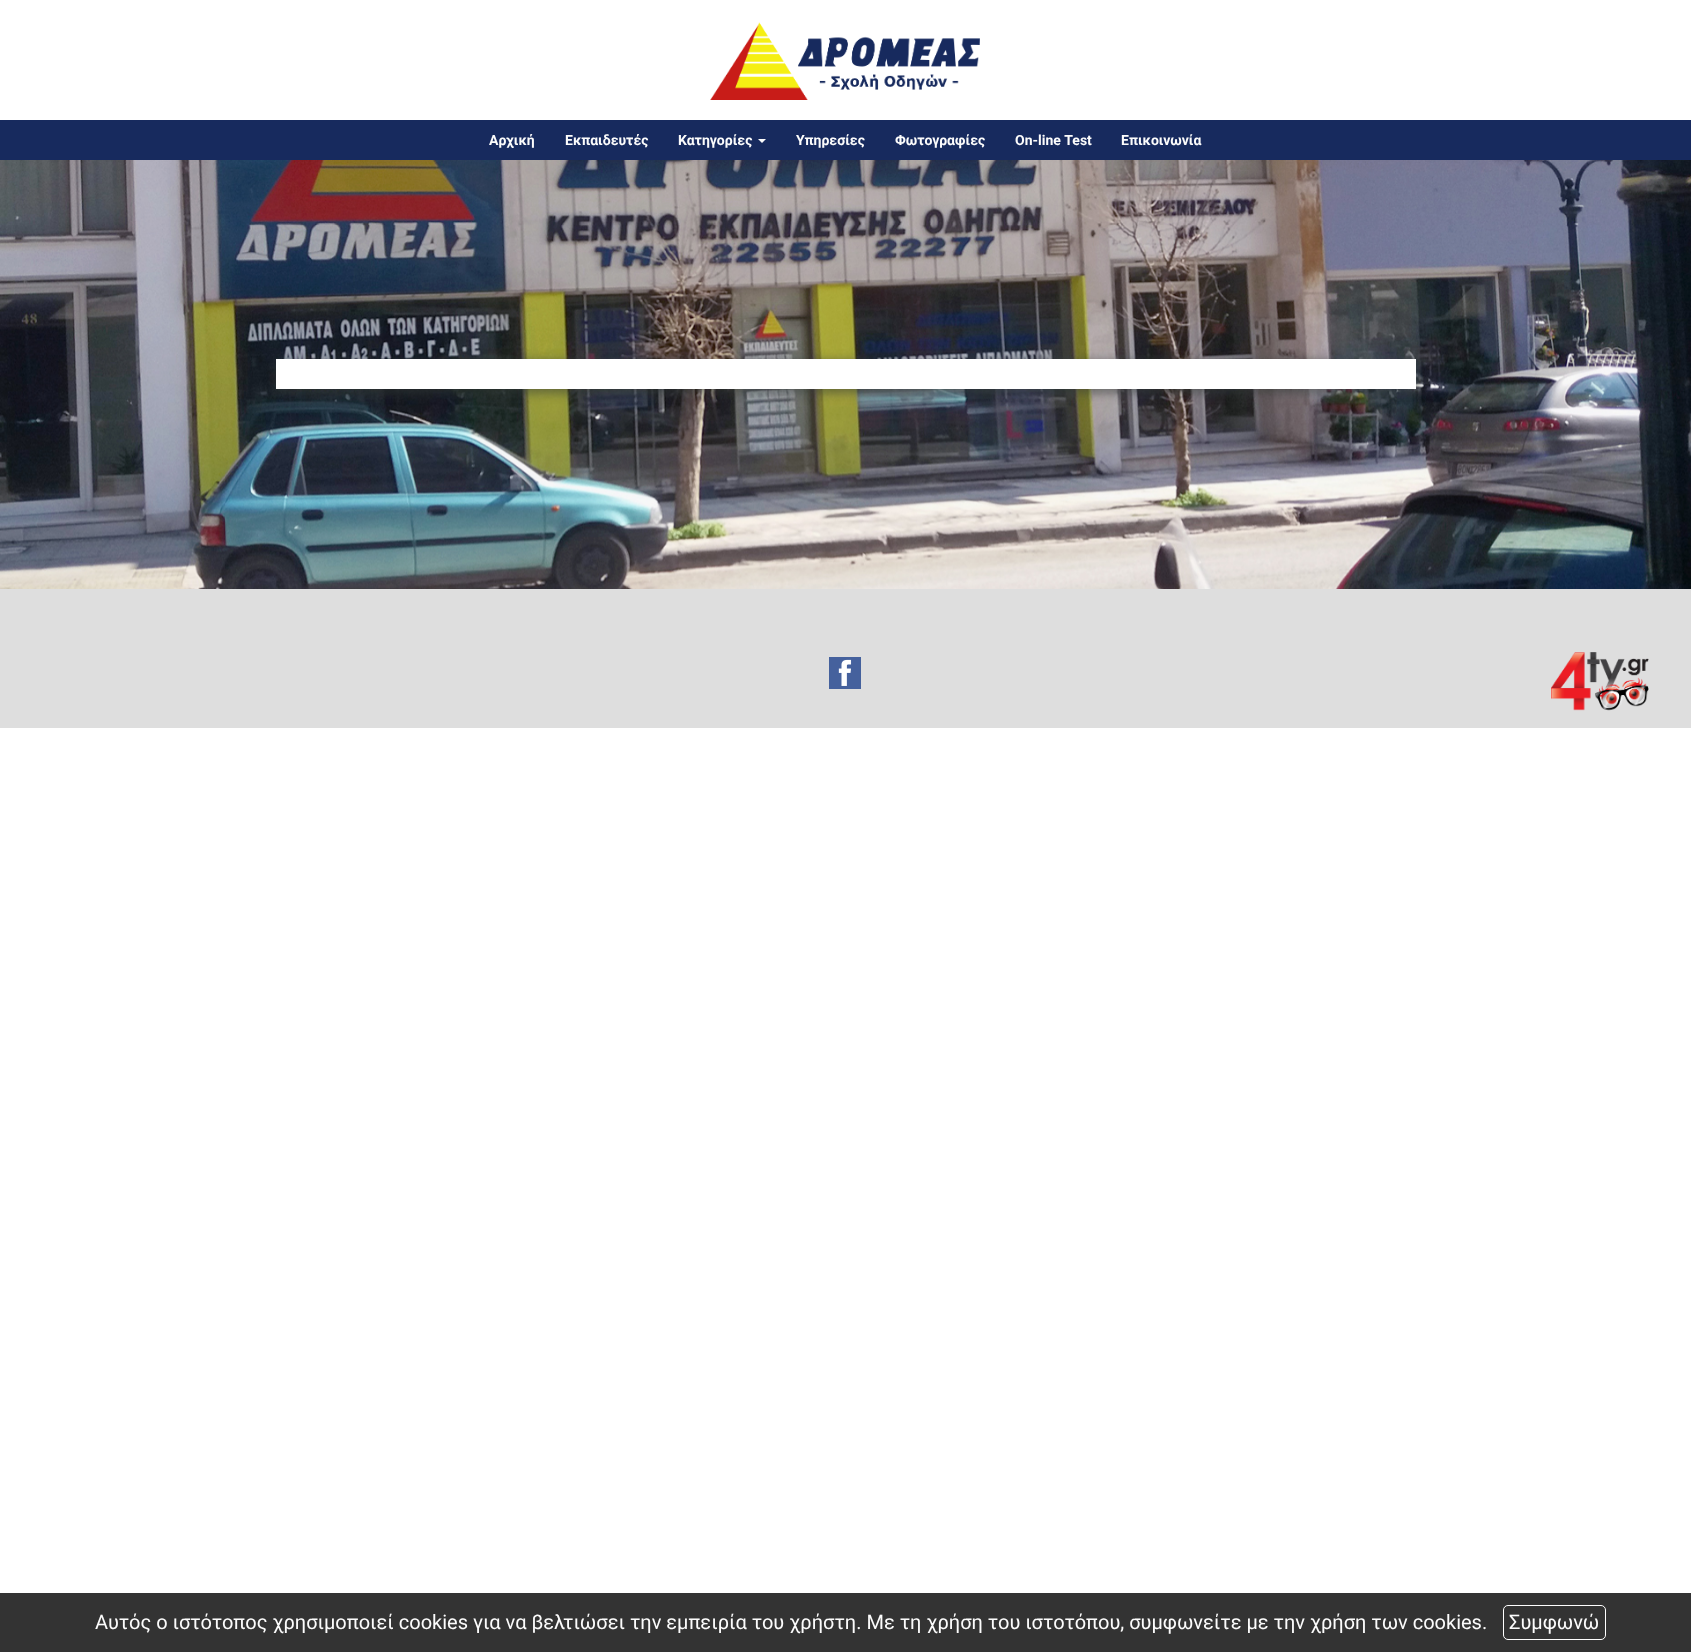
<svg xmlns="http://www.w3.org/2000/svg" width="1691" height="1652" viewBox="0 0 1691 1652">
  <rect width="100%" height="100%" fill="#fff"/>
  <image x="710" y="22" width="270" height="78" href="img/1.png"/>
  <path d="M0 120h1691v40H0z" fill="#172a5e"/>
  <path d="M758 139H766L762 143Z" fill="#fcfcfc"/>
  <image x="0" y="160" width="1691" height="429" href="img/2.png"/>
  <path d="M274 360h1144v34H274z" fill="#333b3980" filter="blur(5px)"/>
  <path d="M276 359h1140v30H276z" fill="#fff"/>
  <path d="M0 589h1691v139H0z" fill="#dedede"/>
  <path d="M829 657h32v32H829z" fill="#45619d"/>
  <image x="838" y="659" width="14" height="27" href="img/3.png"/>
  <image x="1551" y="652" width="98" height="59" href="img/4.png"/>
  <path d="M0 1593h1691v59H0z" fill="#333"/>
  <rect x="1503.5" y="1605.5" width="102" height="34" rx="4.5" fill="none" stroke="#fff"/>
  <g font-family="Roboto" font-size="14" font-weight="bold" fill="#fcfcfc">
    <text x="489" y="145">Αρχική</text>
    <text x="565" y="145">Εκπαιδευτές</text>
    <text x="678" y="145">Κατηγορίες</text>
    <text x="796" y="145">Υπηρεσίες</text>
    <text x="895" y="145">Φωτογραφίες</text>
    <text x="1015" y="145">On-line Test</text>
    <text x="1121" y="145">Επικοινωνία</text>
  </g>
  <g font-family="Roboto" font-size="20" fill="#fcfcfc">
    <text x="95" y="1629">Αυτός ο ιστότοπος χρησιμοποιεί cookies για να βελτιώσει την εμπειρία του χρήστη. Με τη χρήση του ιστοτόπου, συμφωνείτε με την χρήση των cookies.</text>
    <text x="1509" y="1629">Συμφωνώ</text>
  </g>
</svg>
